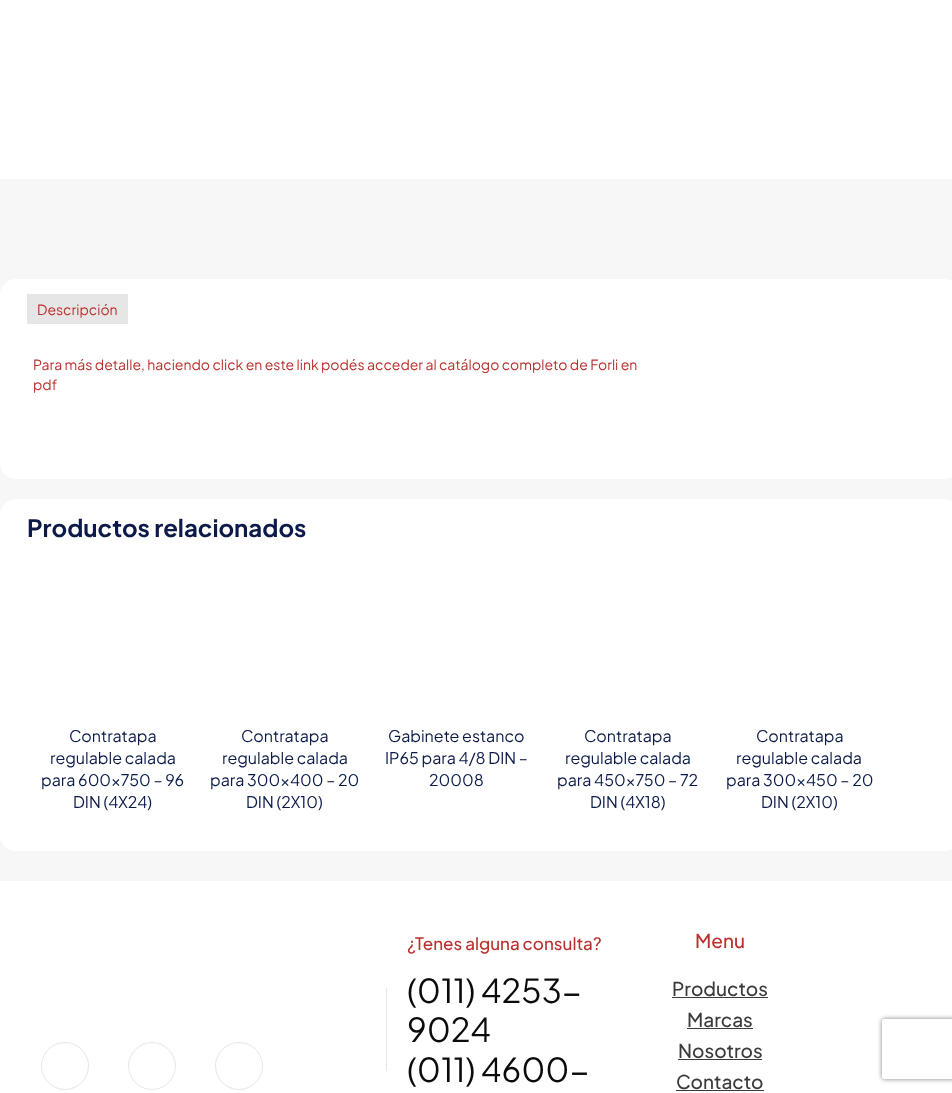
<svg xmlns="http://www.w3.org/2000/svg" width="952" height="1093" viewBox="0 0 952 1093">
  <defs>
    <clipPath id="clip1"><path d="M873 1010H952V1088H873ZM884 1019H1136C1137 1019 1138 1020 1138 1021V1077C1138 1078 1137 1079 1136 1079H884C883 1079 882 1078 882 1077V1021C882 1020 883 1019 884 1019Z" clip-rule="evenodd"/></clipPath>
  </defs>
  <rect width="100%" height="100%" fill="#f7f7f7"/>
  <path d="M0 0h952v179H0z" fill="#fff"/>
  <rect y="279" width="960" height="200" rx="16" fill="#fff"/>
  <path d="M27 294h101v30H27z" fill="#e6e6e6"/>
  <rect y="499" width="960" height="352" rx="16" fill="#fff"/>
  <path d="M0 881h952v212H0z" fill="#fff"/>
  <circle cx="65" cy="1066" r="23.5" fill="none" stroke="#e7e7e7"/>
  <circle cx="152" cy="1066" r="23.5" fill="none" stroke="#e7e7e7"/>
  <circle cx="239" cy="1066" r="23.5" fill="none" stroke="#e7e7e7"/>
  <path d="M386 988h1v83H386z" fill="#e7e7e7"/>
  <path d="M672 997h96v1H672z" fill="#3b3b3b"/>
  <path d="M687 1028h66v1H687z" fill="#3b3b3b"/>
  <path d="M678 1059h84v1H678z" fill="#3b3b3b"/>
  <path d="M676 1090h88v1H676z" fill="#3b3b3b"/>
  <g clip-path="url(#clip1)">
    <rect x="882" y="1019" width="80" height="60" rx="2" fill="#808080" filter="blur(2.5px)"/>
  </g>
  <g font-family="Plus Jakarta Sans" font-size="14" fill="#b9312e">
    <text x="37" y="315">Descripción</text>
    <text x="33" y="370">Para más detalle, haciendo click en este link podés acceder al catálogo completo de Forli en</text>
    <text x="33" y="390">pdf</text>
  </g>
  <text x="27" y="537" font-family="Plus Jakarta Sans" font-size="24" font-weight="bold" fill="#0b1a48">Productos relacionados</text>
  <g font-family="Plus Jakarta Sans" font-size="16" fill="#0b1a48">
    <text x="69" y="742">Contratapa</text>
    <text x="50" y="764">regulable calada</text>
    <text x="41" y="786">para 600×750 – 96</text>
    <text x="73" y="808">DIN (4X24)</text>
    <text x="241" y="742">Contratapa</text>
    <text x="222" y="764">regulable calada</text>
    <text x="210" y="786">para 300×400 – 20</text>
    <text x="246" y="808">DIN (2X10)</text>
    <text x="388" y="742">Gabinete estanco</text>
    <text x="385" y="764">IP65 para 4/8 DIN –</text>
    <text x="429" y="786">20008</text>
    <text x="584" y="742">Contratapa</text>
    <text x="565" y="764">regulable calada</text>
    <text x="557" y="786">para 450×750 – 72</text>
    <text x="590" y="808">DIN (4X18)</text>
    <text x="756" y="742">Contratapa</text>
    <text x="736" y="764">regulable calada</text>
    <text x="726" y="786">para 300×450 – 20</text>
    <text x="761" y="808">DIN (2X10)</text>
  </g>
  <text x="407" y="950" font-family="Plus Jakarta Sans" font-size="17" font-weight="500" fill="#b9312e">¿Tenes alguna consulta?</text>
  <g font-family="Plus Jakarta Sans" font-size="33" fill="#0b0b0b">
    <text x="407" y="1003">(011) 4253-</text>
    <text x="407" y="1042">9024</text>
    <text x="407" y="1082">(011) 4600-</text>
  </g>
  <text x="695" y="948" font-family="Plus Jakarta Sans" font-size="19" font-weight="500" fill="#b9312e">Menu</text>
  <g font-family="Plus Jakarta Sans" font-size="19" font-weight="500" fill="#3b3b3b">
    <text x="672" y="996">Productos</text>
    <text x="687" y="1027">Marcas</text>
    <text x="678" y="1058">Nosotros</text>
    <text x="676" y="1089">Contacto</text>
  </g>
</svg>
